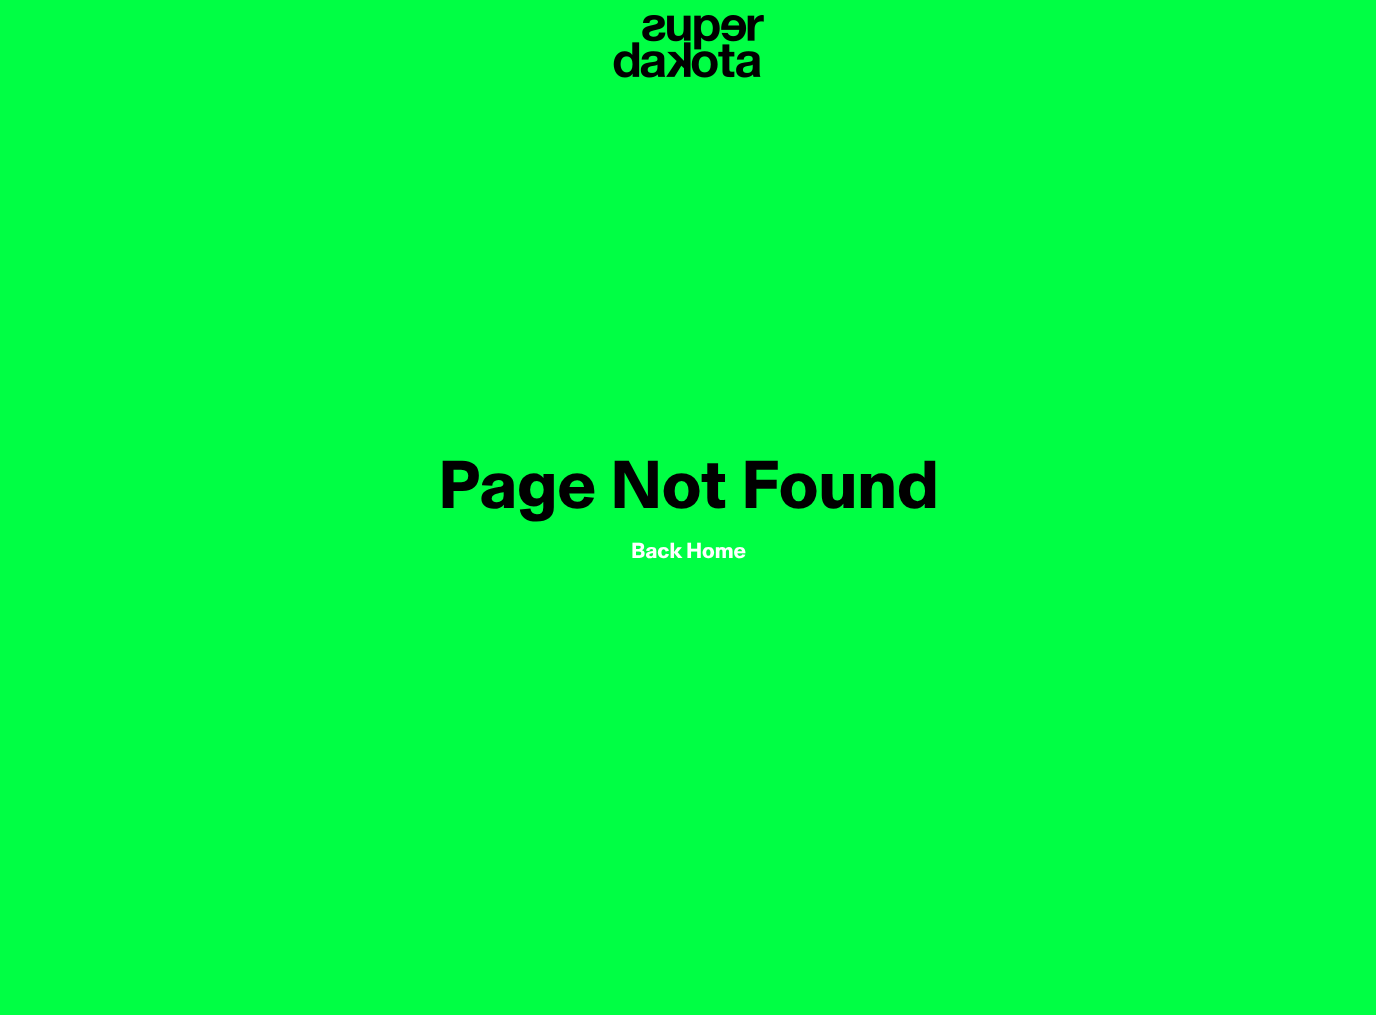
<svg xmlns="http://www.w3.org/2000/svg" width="1376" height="1015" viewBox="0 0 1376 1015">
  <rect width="100%" height="100%" fill="#0f4"/>
  <image x="613" y="15" width="151" height="63" href="img/1.png"/>
  <text x="438" y="508" font-family="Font" font-size="68.75" font-weight="600" fill="#000">Page Not Found</text>
  <text x="631" y="558" font-family="Font" font-size="22" font-weight="600" fill="#fff">Back Home</text>
</svg>
